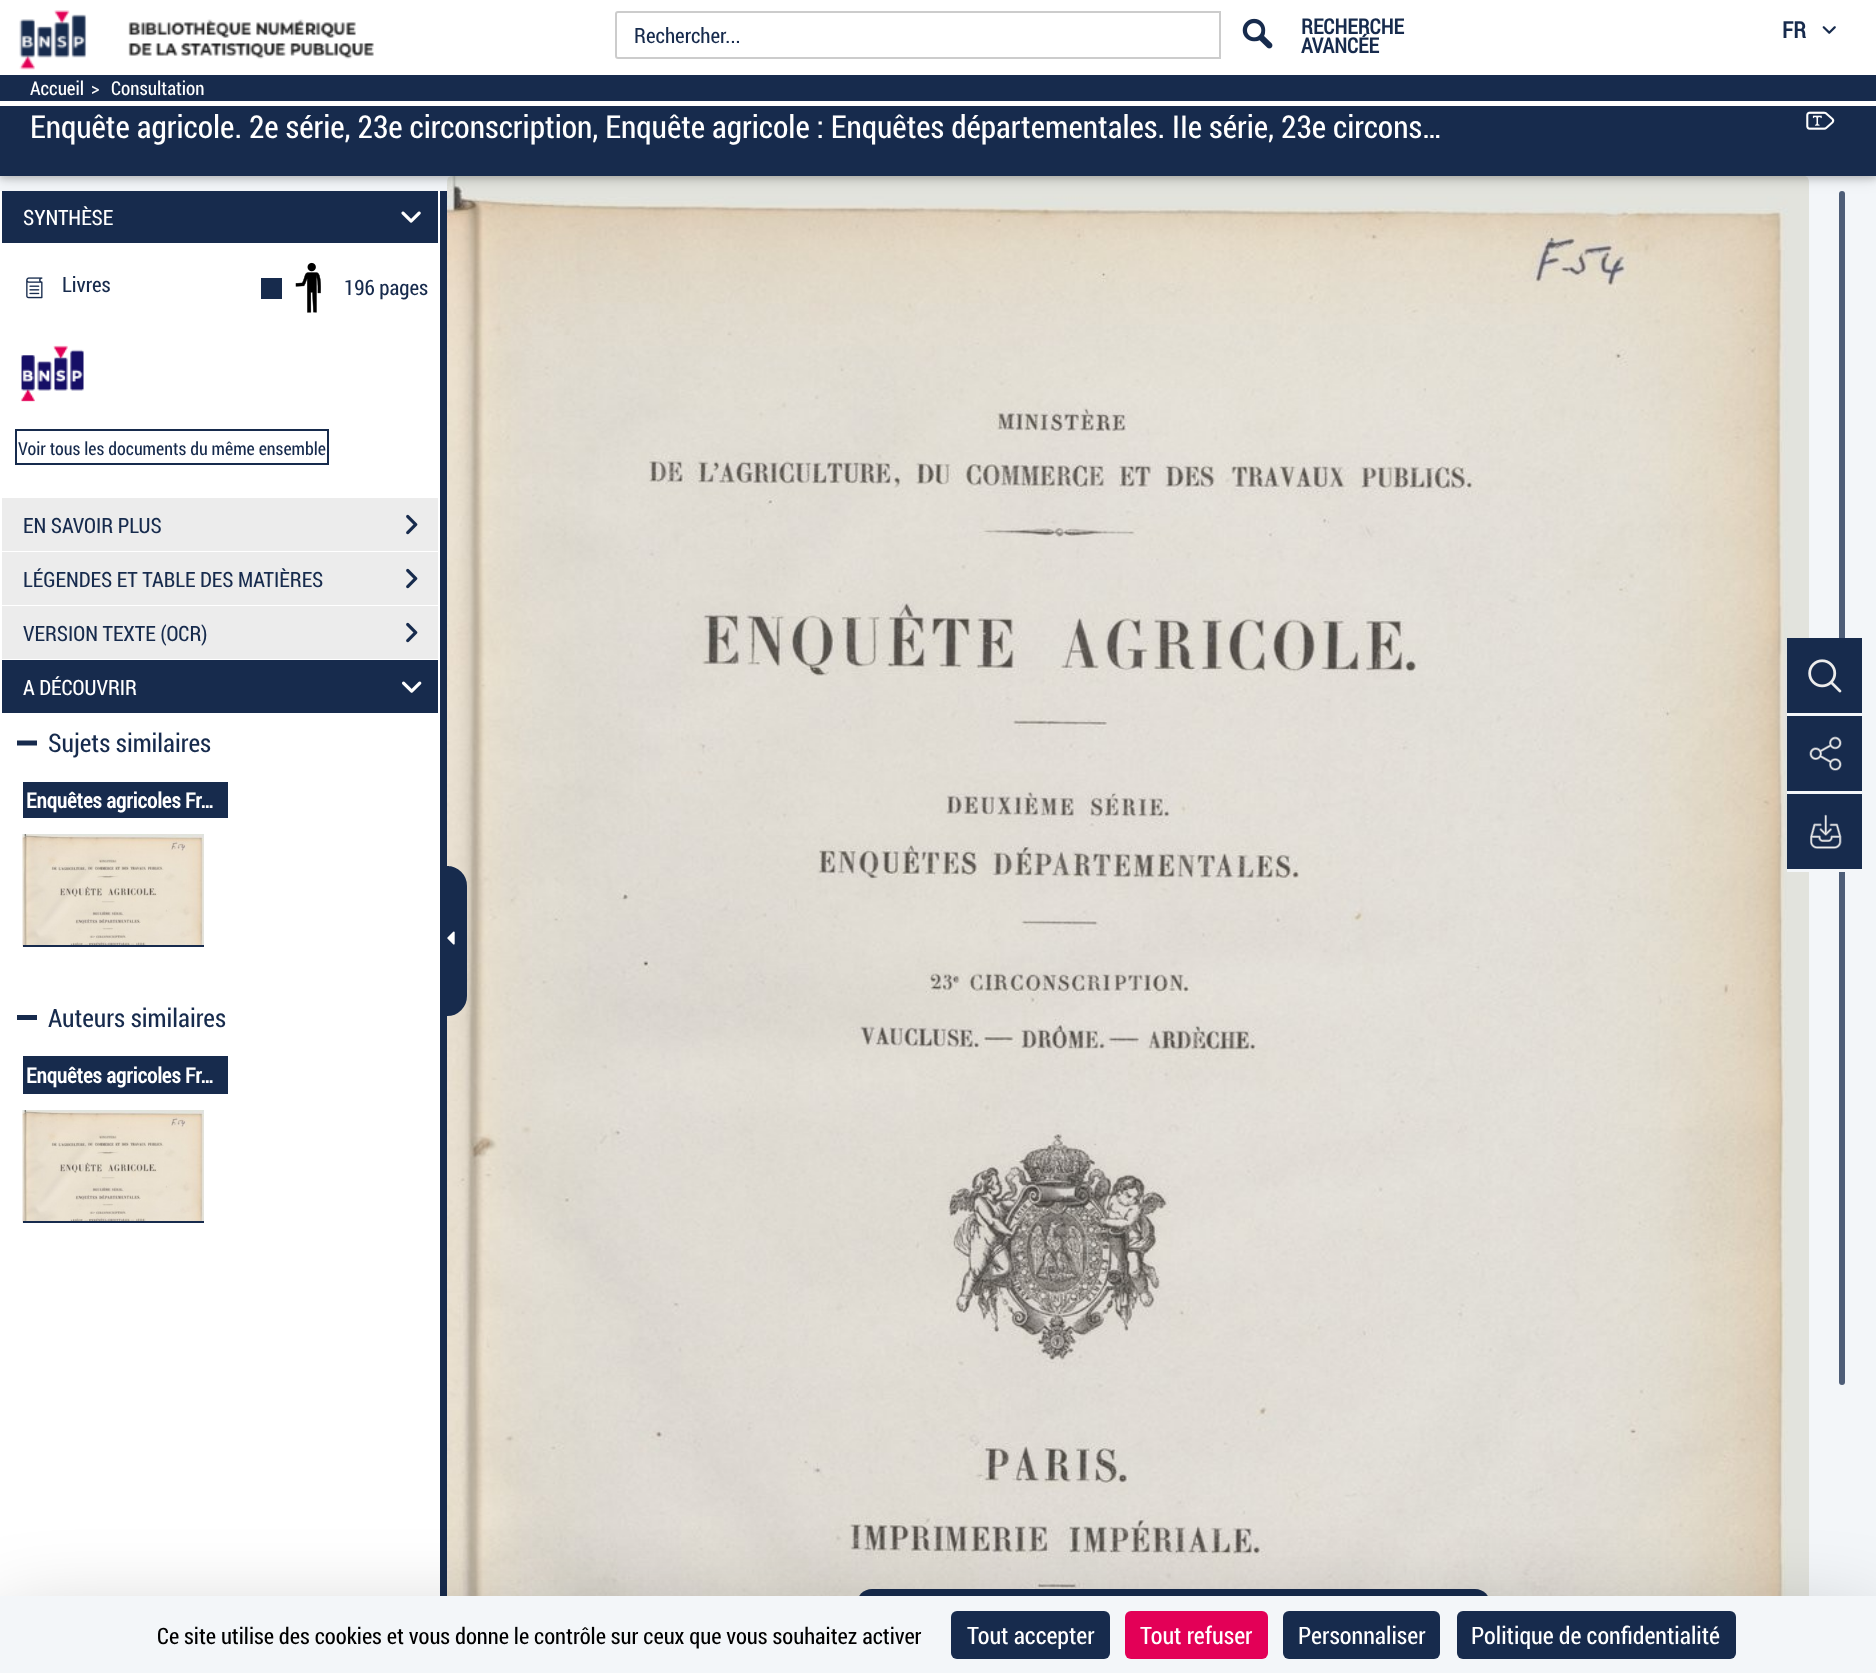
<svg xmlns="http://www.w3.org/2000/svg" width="1876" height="1673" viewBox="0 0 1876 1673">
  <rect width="100%" height="100%" fill="#f3f6f9"/>
  <image x="447" y="176" width="1362" height="1420" href="img/13.png"/>
  <rect x="1839" y="191" width="6" height="1194" rx="3" fill="#4e5e78"/>
  <path d="M0 78h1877v101H0z" fill="#0000001f" filter="blur(7.5px)"/>
  <path d="M0 78h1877v101H0z" fill="#00000029" filter="blur(3px)"/>
  <path d="M0 0h1876v75H0z" fill="#fff"/>
  <image x="19" y="10" width="355" height="60" href="img/1.png"/>
  <path d="M618 12H1220V58H618C617 58 616 57 616 56V14C616 13 617 12 618 12Z" fill="none" stroke="#ccc" stroke-width="2"/>
  <image x="1242" y="18" width="31" height="31" href="img/2.png"/>
  <image x="1822" y="26" width="14" height="8" href="img/3.png"/>
  <path d="M0 75h1876v101H0z" fill="#172b4d"/>
  <path d="M0 101h1876v5H0z" fill="#fff"/>
  <image x="1806" y="111" width="29" height="19" href="img/4.png"/>
  <path d="M440 191h7v1405H440z" fill="#172b4d"/>
  <path d="M0 191h440v1405H0z" fill="#fff"/>
  <path d="M2 191h436v52H2z" fill="#172b4d"/>
  <image x="401" y="211" width="20" height="12" href="img/5.png"/>
  <image x="26" y="277" width="17" height="22" href="img/6.png"/>
  <path d="M261 278h21v21H261z" fill="#172b4d"/>
  <image x="295" y="262" width="26" height="51" href="img/7.png"/>
  <image x="20" y="345" width="64" height="57" href="img/8.png"/>
  <path d="M16 430h312v34H16z" fill="none" stroke="#172b4d" stroke-width="2"/>
  <path d="M2 498h436v53H2z" fill="#ececec"/>
  <image x="406" y="514" width="12" height="21" href="img/9.png"/>
  <path d="M2 552h436v53H2z" fill="#ececec"/>
  <image x="406" y="568" width="12" height="21" href="img/9.png"/>
  <path d="M2 606h436v53H2z" fill="#ececec"/>
  <image x="406" y="622" width="12" height="21" href="img/9.png"/>
  <path d="M2 660h436v53H2z" fill="#172b4d"/>
  <image x="402" y="681" width="20" height="12" href="img/10.png"/>
  <path d="M24.5 745.5H17V740.5H37V745.5Z" fill="#172b4d"/>
  <path d="M23 782h205v36H23z" fill="#172b4d"/>
  <image x="22" y="834" width="182" height="113" href="img/11.png"/>
  <path d="M23 945h181v2H23z" fill="#172b4d"/>
  <path d="M24.5 1020H17V1015H37V1020Z" fill="#172b4d"/>
  <path d="M23 1056h205v38H23z" fill="#172b4d"/>
  <image x="22" y="1110" width="182" height="113" href="img/11.png"/>
  <path d="M23 1221h181v2H23z" fill="#172b4d"/>
  <path d="M448 867H447C457.5 867 466 875.5 466 886V996C466 1006.5 457.5 1015 447 1015H448Z" fill="#172b4d" stroke="#172b4d" stroke-width="2"/>
  <image x="447" y="931" width="8" height="14" href="img/12.png"/>
  <path d="M1787 638h75v75H1787z" fill="#172b4d"/>
  <image x="1808" y="659" width="34" height="34" href="img/14.png"/>
  <path d="M1787 713h58v3H1787z" fill="#f3f6f9"/>
  <path d="M1787 716h75v75H1787z" fill="#172b4d"/>
  <image x="1809" y="736" width="33" height="35" href="img/15.png"/>
  <path d="M1787 791h58v3H1787z" fill="#f3f6f9"/>
  <path d="M1787 794h75v75H1787z" fill="#172b4d"/>
  <image x="1810" y="814" width="32" height="35" href="img/16.png"/>
  <path d="M1787 869h58v3H1787z" fill="#f3f6f9"/>
  <path d="M872 1589H1475C1483.5 1589 1490 1595.5 1490 1604V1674H857V1604C857 1595.5 863.5 1589 872 1589Z" fill="#172b4d"/>
  <path d="M0 1626h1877v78H0z" fill="#00000040" filter="blur(45px)"/>
  <path d="M0 1596h1876v77H0z" fill="#f3f6f9"/>
  <rect x="951" y="1611" width="159" height="48" rx="6" fill="#172b4d"/>
  <rect x="1125" y="1611" width="143" height="48" rx="6" fill="#e30057"/>
  <rect x="1283" y="1611" width="157" height="48" rx="6" fill="#172b4d"/>
  <rect x="1457" y="1611" width="279" height="48" rx="6" fill="#172b4d"/>
  <text x="634" y="43" font-family="Roboto Condensed" font-size="21" fill="#172b4d">Rechercher...</text>
  <g font-family="Roboto Condensed" font-size="21" font-weight="bold" fill="#172b4d">
    <text x="1301" y="34">RECHERCHE</text>
    <text x="1301" y="53">AVANCÉE</text>
  </g>
  <text x="1782" y="38" font-family="Roboto Condensed" font-size="22.5" font-weight="bold" fill="#172b4d">FR</text>
  <g font-family="Roboto Condensed" font-size="19" fill="#fff">
    <text x="30" y="95">Accueil</text>
    <text x="91" y="95">&gt;</text>
    <text x="111" y="95">Consultation</text>
  </g>
  <text x="30" y="138" font-family="Roboto Condensed" font-size="31.5" fill="#fff">Enquête agricole. 2e série, 23e circonscription, Enquête agricole : Enquêtes départementales. IIe série, 23e circons…</text>
  <text x="23" y="225" font-family="Roboto Condensed" font-size="21" fill="#fff">SYNTHÈSE</text>
  <g font-family="Roboto Condensed" font-size="21" fill="#172b4d">
    <text x="62" y="292">Livres</text>
    <text x="344" y="295">196 pages</text>
  </g>
  <text x="18" y="455" font-family="Roboto Condensed" font-size="18" fill="#172b4d">Voir tous les documents du même ensemble</text>
  <g font-family="Roboto Condensed" font-size="21" fill="#172b4d">
    <text x="23" y="533">EN SAVOIR PLUS</text>
    <text x="23" y="587">LÉGENDES ET TABLE DES MATIÈRES</text>
    <text x="23" y="641">VERSION TEXTE (OCR)</text>
  </g>
  <text x="23" y="695" font-family="Roboto Condensed" font-size="21" fill="#fff">A DÉCOUVRIR</text>
  <text x="48" y="752" font-family="Roboto Condensed" font-size="25.5" fill="#172b4d">Sujets similaires</text>
  <text x="26" y="808" font-family="Roboto Condensed" font-size="21" font-weight="bold" fill="#fff">Enquêtes agricoles Fr…</text>
  <text x="48" y="1027" font-family="Roboto Condensed" font-size="25.5" fill="#172b4d">Auteurs similaires</text>
  <text x="26" y="1083" font-family="Roboto Condensed" font-size="21" font-weight="bold" fill="#fff">Enquêtes agricoles Fr…</text>
  <text x="157" y="1644" font-family="Roboto Condensed" font-size="22.5" fill="#000">Ce site utilise des cookies et vous donne le contrôle sur ceux que vous souhaitez activer</text>
  <g font-family="Roboto Condensed" font-size="24" fill="#fff">
    <text x="967" y="1644">Tout accepter</text>
    <text x="1140" y="1644">Tout refuser</text>
    <text x="1298" y="1644">Personnaliser</text>
    <text x="1471" y="1644">Politique de confidentialité</text>
  </g>
</svg>
